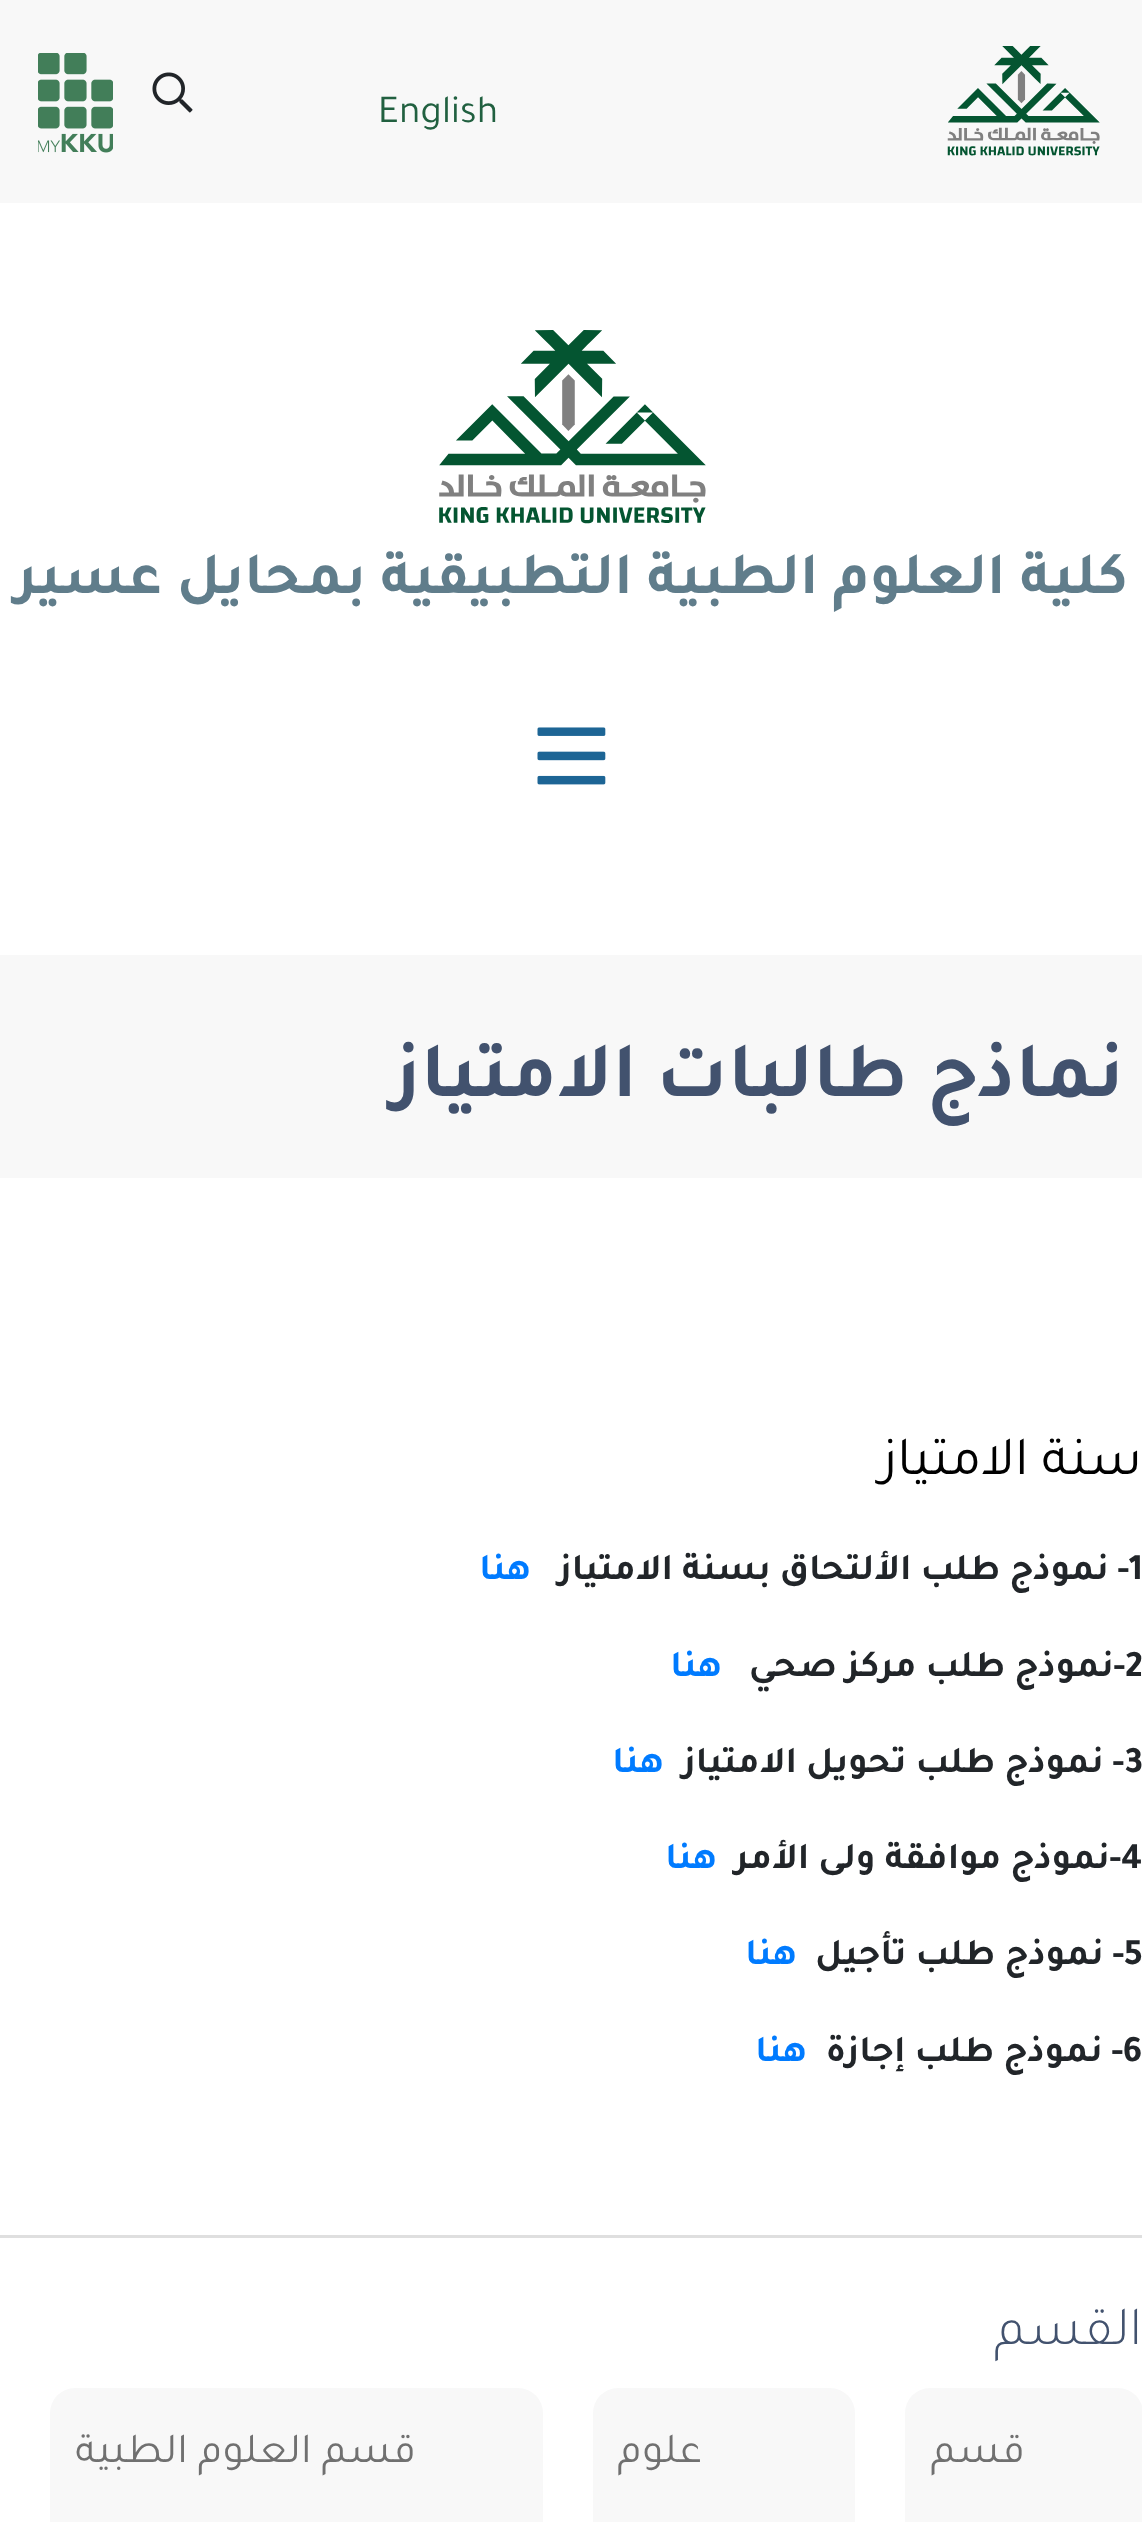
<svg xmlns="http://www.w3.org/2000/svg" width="1142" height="2522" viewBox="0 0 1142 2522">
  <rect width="100%" height="100%" fill="#fff"/>
  <path d="M0 0h1142v203H0z" fill="#f8f8f8"/>
  <image x="947" y="46" width="153" height="110" href="img/1.png"/>
  <image x="152" y="72" width="41" height="41" href="img/2.png"/>
  <image x="38" y="53" width="75" height="100" href="img/3.png"/>
  <image x="439" y="330" width="267" height="194" href="img/4.png"/>
  <image x="537" y="727" width="69" height="58" href="img/5.png"/>
  <path d="M0 955h1142v223H0z" fill="#f8f8f8"/>
  <path d="M0 2235h1142v3H0z" fill="#dfdfdf"/>
  <rect x="905" y="2388" width="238" height="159" rx="25" fill="#f8f8f8"/>
  <rect x="593" y="2388" width="262" height="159" rx="25" fill="#f8f8f8"/>
  <rect x="50" y="2388" width="493" height="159" rx="25" fill="#f8f8f8"/>
  <text x="378" y="122" font-family="Tajawal" font-size="40" fill="#216040">English</text>
  <text x="1128" y="593" font-family="Tajawal" font-size="60" font-weight="bold" direction="rtl" fill="#607d8b">كلية العلوم الطبية التطبيقية بمحايل عسير</text>
  <text x="1124" y="1096" font-family="Tajawal" font-size="80" font-weight="bold" direction="rtl" fill="#42526e">نماذج طالبات الامتياز</text>
  <text x="1142" y="1474" font-family="Tajawal" font-size="55" direction="rtl" fill="#000">سنة الامتياز</text>
  <text x="1129" y="1579" font-family="Tajawal" font-size="37.5" font-weight="bold" direction="rtl" fill="#212529">- نموذج طلب الألتحاق بسنة الامتياز</text>
  <text x="1129" y="1579" font-family="Tajawal" font-size="37.5" font-weight="bold" fill="#212529">1</text>
  <text x="531" y="1579" font-family="Tajawal" font-size="37.5" font-weight="bold" direction="rtl" fill="#007bff">هنا</text>
  <text x="1125" y="1676" font-family="Tajawal" font-size="37.5" font-weight="bold" fill="#212529">2</text>
  <text x="1125" y="1676" font-family="Tajawal" font-size="37.5" font-weight="bold" direction="rtl" fill="#212529">-نموذج طلب مركز صحي</text>
  <text x="722" y="1676" font-family="Tajawal" font-size="37.5" font-weight="bold" direction="rtl" fill="#007bff">هنا</text>
  <text x="1124" y="1772" font-family="Tajawal" font-size="37.5" font-weight="bold" fill="#212529">3</text>
  <text x="1124" y="1772" font-family="Tajawal" font-size="37.5" font-weight="bold" direction="rtl" fill="#212529">- نموذج طلب تحويل الامتياز</text>
  <text x="664" y="1772" font-family="Tajawal" font-size="37.5" font-weight="bold" direction="rtl" fill="#007bff">هنا</text>
  <text x="1121" y="1868" font-family="Tajawal" font-size="37.5" font-weight="bold" fill="#212529">4</text>
  <text x="1121" y="1868" font-family="Tajawal" font-size="37.5" font-weight="bold" direction="rtl" fill="#212529">-نموذج موافقة ولى الأمر</text>
  <text x="717" y="1868" font-family="Tajawal" font-size="37.5" font-weight="bold" direction="rtl" fill="#007bff">هنا</text>
  <text x="1124" y="1964" font-family="Tajawal" font-size="37.5" font-weight="bold" fill="#212529">5</text>
  <text x="1124" y="1964" font-family="Tajawal" font-size="37.5" font-weight="bold" direction="rtl" fill="#212529">- نموذج طلب تأجيل</text>
  <text x="797" y="1964" font-family="Tajawal" font-size="37.5" font-weight="bold" direction="rtl" fill="#007bff">هنا</text>
  <text x="1123" y="2061" font-family="Tajawal" font-size="37.5" font-weight="bold" fill="#212529">6</text>
  <text x="1123" y="2061" font-family="Tajawal" font-size="37.5" font-weight="bold" direction="rtl" fill="#212529">- نموذج طلب إجازة</text>
  <text x="807" y="2061" font-family="Tajawal" font-size="37.5" font-weight="bold" direction="rtl" fill="#007bff">هنا</text>
  <text x="1142" y="2344" font-family="Tajawal" font-size="55" font-weight="300" direction="rtl" fill="#42526e">القسم</text>
  <g font-family="Tajawal" font-size="42.75" direction="rtl" fill="#707070">
    <text x="1025" y="2462">قسم</text>
    <text x="702" y="2462">علوم</text>
    <text x="416" y="2462">قسم العلوم الطبية</text>
  </g>
</svg>
